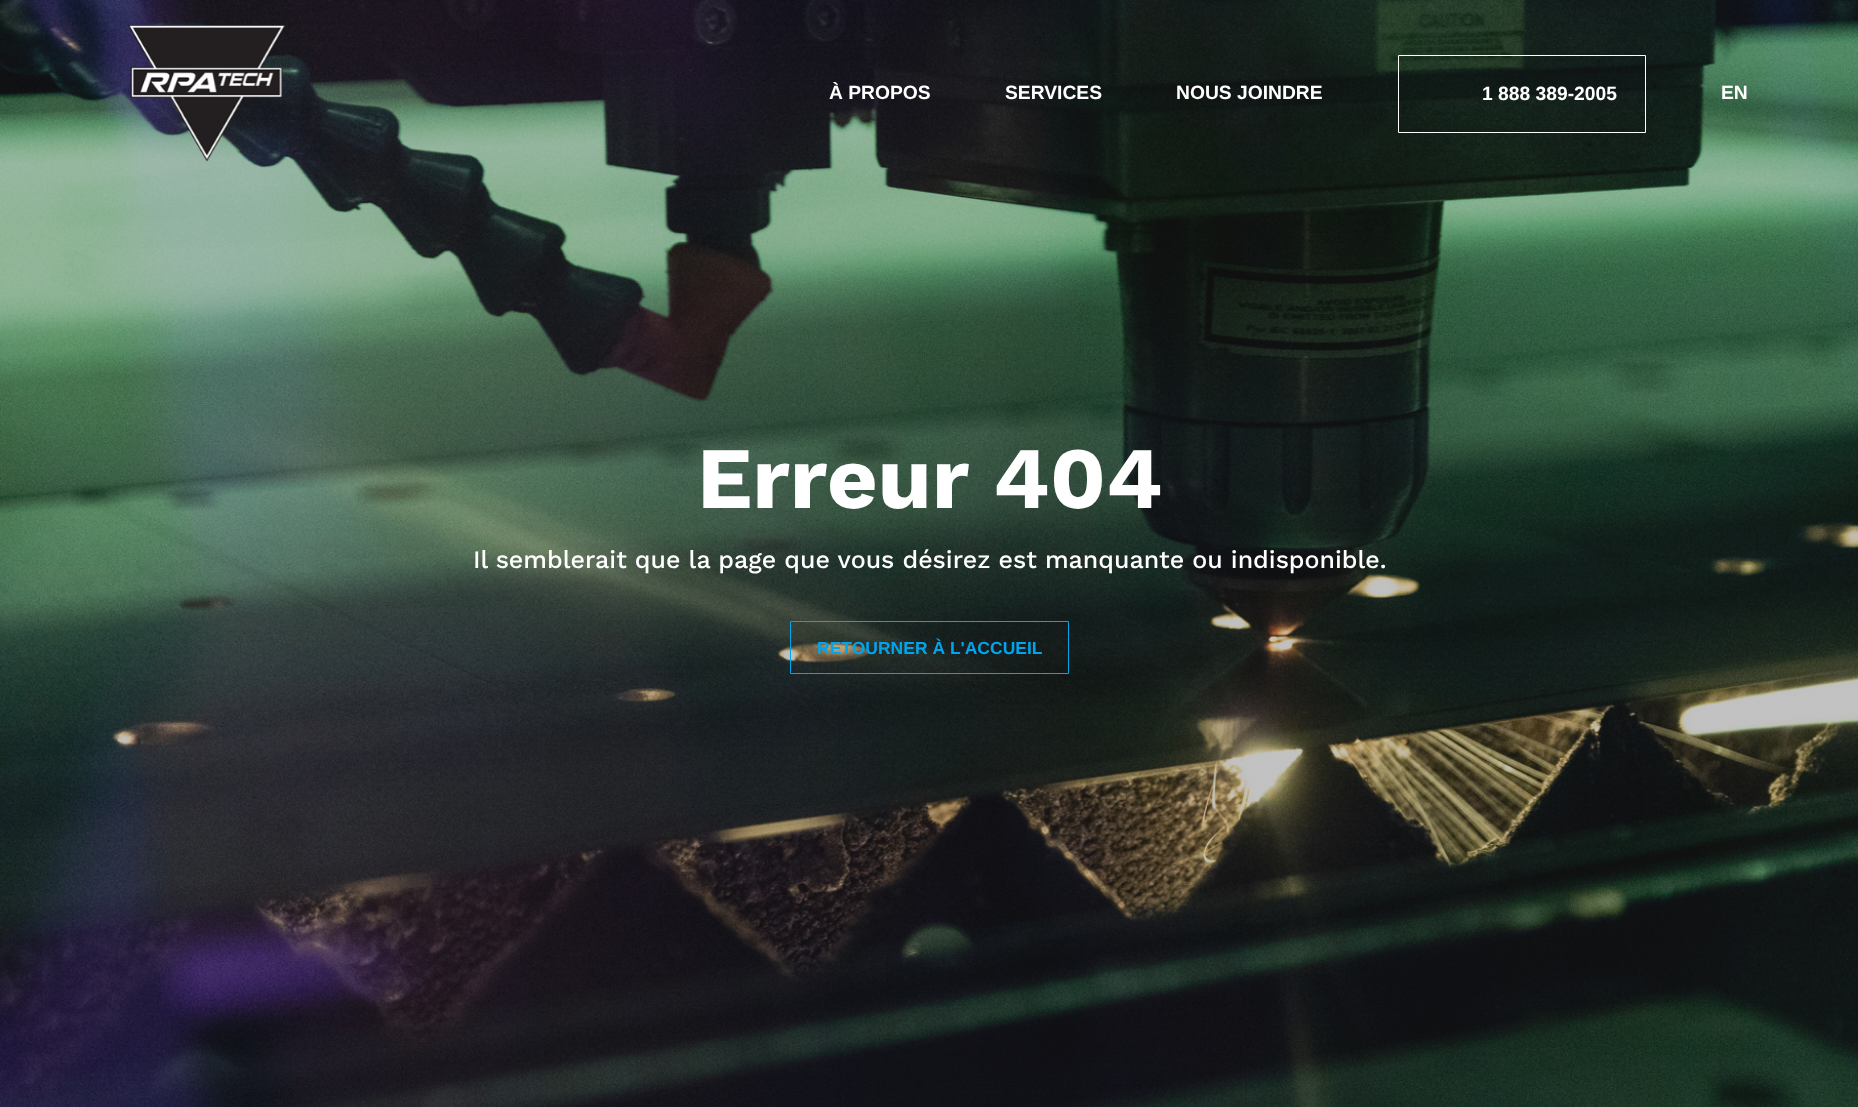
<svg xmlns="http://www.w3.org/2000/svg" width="1858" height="1107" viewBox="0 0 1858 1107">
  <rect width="100%" height="100%" fill="#fff"/>
  <image x="0" y="0" width="1858" height="1107" href="img/2.png"/>
  <image x="128" y="25" width="158" height="137" href="img/1.png"/>
  <path d="M1398.5 55.5h247v77H1398.5z" fill="none" stroke="#fff"/>
  <path d="M790.5 621.5h278v52H790.5z" fill="none" stroke="#01a5ed"/>
  <g font-family="Liberation Sans" font-size="19.25" font-weight="bold" fill="#fff">
    <text x="829" y="99">À PROPOS</text>
    <text x="1005" y="99">SERVICES</text>
    <text x="1176" y="99">NOUS JOINDRE</text>
    <text x="1482" y="100">1 888 389-2005</text>
    <text x="1721" y="99">EN</text>
  </g>
  <text x="697" y="508" font-family="Work Sans" font-size="87.5" font-weight="bold" fill="#fff">Erreur 404</text>
  <text x="473" y="568" font-family="Work Sans" font-size="25" font-weight="500" fill="#fff">Il semblerait que la page que vous désirez est manquante ou indisponible.</text>
  <text x="817" y="654" font-family="Liberation Sans" font-size="17.5" font-weight="bold" fill="#01a5ed">RETOURNER À L'ACCUEIL</text>
</svg>
